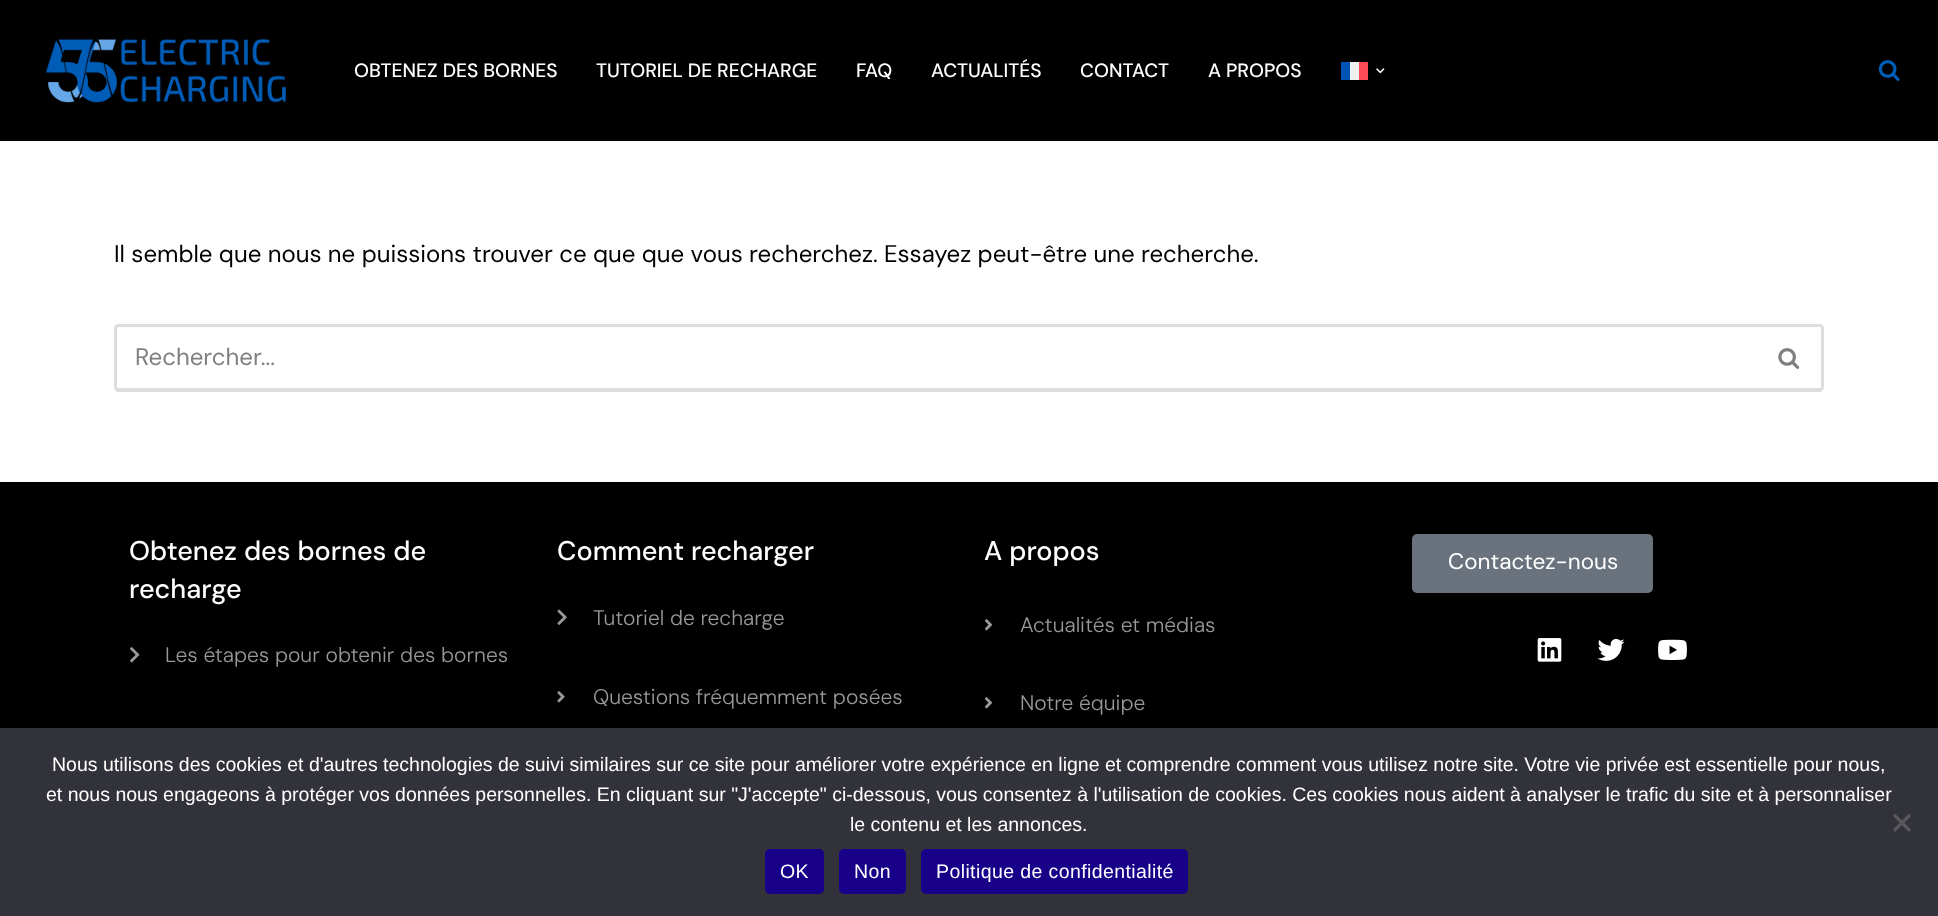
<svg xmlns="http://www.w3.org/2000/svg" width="1938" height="916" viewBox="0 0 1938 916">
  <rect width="100%" height="100%" fill="#fff"/>
  <path d="M0 -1h1938v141H0z" fill="#0000001a" filter="blur(2px)"/>
  <path d="M0 0h1938v141H0z" fill="#000"/>
  <image x="46" y="38" width="240" height="65" href="img/1.png"/>
  <path d="M1350 62h9v18H1350z" fill="#f0f0f0"/>
  <path d="M1359 62h9v18H1359z" fill="#ff4b55"/>
  <path d="M1341 62h9v18H1341z" fill="#0052b4"/>
  <image x="1376" y="68" width="9" height="6" href="img/2.png"/>
  <image x="1878" y="60" width="22" height="21" href="img/3.png"/>
  <path d="M118 324H1756V392H118C116 392 114 389 114 387V328C114 326 116 324 118 324ZM118 327H1756V388H118C118 388 117 388 117 387V328C117 328 118 327 118 327Z" fill="#ddd" fill-rule="evenodd"/>
  <path d="M1756 324H1820C1822 324 1824 326 1824 328V387C1824 389 1822 392 1820 392H1756ZM1756 327H1820C1820 327 1821 328 1821 328V387C1821 388 1820 388 1820 388H1756Z" fill="#ddd" fill-rule="evenodd"/>
  <image x="1778" y="348" width="22" height="21" href="img/4.png"/>
  <path d="M0 482h1938v246H0z" fill="#000"/>
  <image x="130" y="647" width="10" height="16" href="img/5.png"/>
  <image x="557" y="609" width="10" height="16" href="img/6.png"/>
  <image x="557" y="691" width="8" height="12" href="img/7.png"/>
  <image x="985" y="619" width="7" height="12" href="img/8.png"/>
  <image x="985" y="697" width="7" height="12" href="img/8.png"/>
  <rect x="1412" y="534" width="241" height="59" rx="5" fill="#69727d"/>
  <image x="1537" y="638" width="25" height="24" href="img/9.png"/>
  <image x="1597" y="638" width="28" height="23" href="img/10.png"/>
  <image x="1658" y="639" width="29" height="21" href="img/11.png"/>
  <path d="M0 728h1938v188H0z" fill="#32323a"/>
  <path d="M1909 813.5L1911 816L1895 832L1893 829.5Z" fill="#59595d"/>
  <path d="M1893 816L1895 813.5L1911 829.5L1909 832Z" fill="#59595d"/>
  <rect x="765" y="849" width="59" height="45" rx="5" fill="#190089"/>
  <rect x="839" y="849" width="67" height="45" rx="5" fill="#190089"/>
  <rect x="921" y="849" width="267" height="45" rx="5" fill="#190089"/>
  <g font-family="DM Sans" font-size="19.25" font-weight="500" fill="#fff">
    <text x="354" y="77">OBTENEZ DES BORNES</text>
    <text x="596" y="77">TUTORIEL DE RECHARGE</text>
    <text x="856" y="77">FAQ</text>
    <text x="931" y="77">ACTUALITÉS</text>
    <text x="1080" y="77">CONTACT</text>
    <text x="1208" y="77">A PROPOS</text>
  </g>
  <text x="114" y="262" font-family="DM Sans" font-size="24" fill="#000">Il semble que nous ne puissions trouver ce que que vous recherchez. Essayez peut-être une recherche.</text>
  <text x="135" y="365" font-family="DM Sans" font-size="24" fill="#808080">Rechercher...</text>
  <g font-family="DM Sans" font-size="27" font-weight="500" fill="#fff">
    <text x="129" y="560">Obtenez des bornes de</text>
    <text x="129" y="598">recharge</text>
  </g>
  <text x="165" y="662" font-family="DM Sans" font-size="21" font-weight="300" fill="#999">Les étapes pour obtenir des bornes</text>
  <text x="557" y="560" font-family="DM Sans" font-size="27" font-weight="500" fill="#fff">Comment recharger</text>
  <g font-family="DM Sans" font-size="21" font-weight="300" fill="#999">
    <text x="593" y="625">Tutoriel de recharge</text>
    <text x="593" y="704">Questions fréquemment posées</text>
  </g>
  <text x="984" y="560" font-family="DM Sans" font-size="27" font-weight="500" fill="#fff">A propos</text>
  <g font-family="DM Sans" font-size="21" font-weight="300" fill="#999">
    <text x="1020" y="632">Actualités et médias</text>
    <text x="1020" y="710">Notre équipe</text>
  </g>
  <text x="1448" y="569" font-family="DM Sans" font-size="22.5" fill="#fff">Contactez-nous</text>
  <g font-family="Liberation Sans" font-size="19.5" fill="#fff">
    <text x="52" y="771">Nous utilisons des cookies et d'autres technologies de suivi similaires sur ce site pour améliorer votre expérience en ligne et comprendre comment vous utilisez notre site. Votre vie privée est essentielle pour nous,</text>
    <text x="46" y="801">et nous nous engageons à protéger vos données personnelles. En cliquant sur "J'accepte" ci-dessous, vous consentez à l'utilisation de cookies. Ces cookies nous aident à analyser le trafic du site et à personnaliser</text>
    <text x="850" y="831">le contenu et les annonces.</text>
  </g>
  <g font-family="Liberation Sans" font-size="19.5" letter-spacing="0.4" fill="#fff">
    <text x="780" y="878">OK</text>
    <text x="854" y="878">Non</text>
    <text x="936" y="878">Politique de confidentialité</text>
  </g>
</svg>
